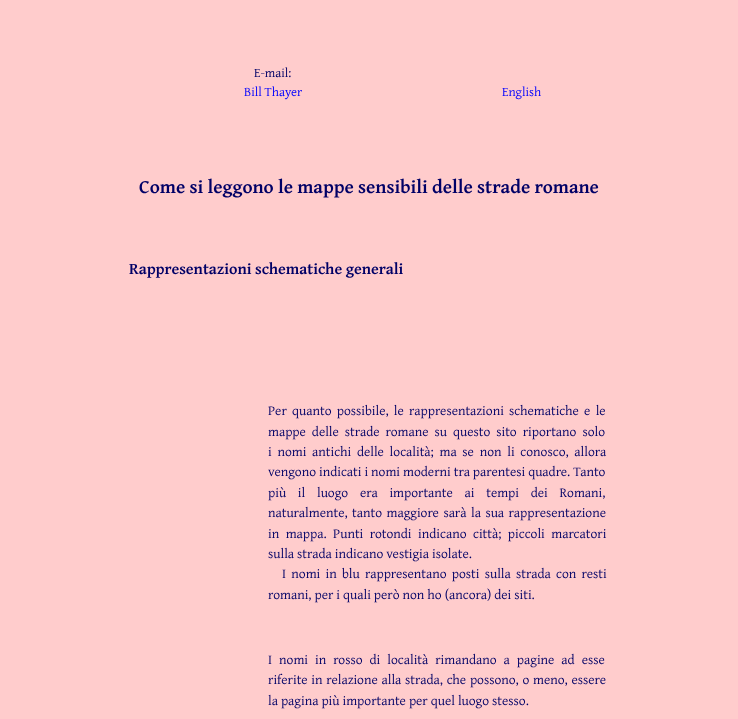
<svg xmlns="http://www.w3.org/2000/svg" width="738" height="719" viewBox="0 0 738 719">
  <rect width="100%" height="100%" fill="#fcc"/>
  <text x="254" y="77" font-family="Gentium Plus" font-size="13" fill="#006">E‑mail:</text>
  <g font-family="Gentium Plus" font-size="13" fill="#00f">
    <text x="244" y="96">Bill Thayer</text>
    <text x="502" y="96">English</text>
  </g>
  <text x="139" y="193" font-family="Gentium Plus" font-size="19.2" font-weight="bold" fill="#006">Come si leggono le mappe sensibili delle strade romane</text>
  <text x="129" y="274" font-family="Gentium Plus" font-size="16" font-weight="bold" fill="#006">Rappresentazioni schematiche generali</text>
  <g font-family="Gentium Plus" font-size="13.6" fill="#006">
    <text x="268" y="415" word-spacing="2.25">Per quanto possibile, le rappresentazioni schematiche e le</text>
    <text x="268" y="436" word-spacing="3">mappe delle strade romane su questo sito riportano solo</text>
    <text x="268" y="456" word-spacing="2.75">i nomi antichi delle località; ma se non li conosco, allora</text>
    <text x="268" y="476">vengono indicati i nomi moderni tra parentesi quadre. Tanto</text>
    <text x="268" y="497" word-spacing="8.75">più il luogo era importante ai tempi dei Romani,</text>
    <text x="268" y="517" word-spacing="1.5">naturalmente, tanto maggiore sarà la sua rappresentazione</text>
    <text x="268" y="538" word-spacing="3.5">in mappa. Punti rotondi indicano città; piccoli marcatori</text>
    <text x="268" y="558">sulla strada indicano vestigia isolate.</text>
    <text x="282" y="578" word-spacing="2.25">I nomi in blu rappresentano posti sulla strada con resti</text>
    <text x="268" y="599">romani, per i quali però non ho (ancora) dei siti.</text>
    <text x="268" y="664" word-spacing="4">I nomi in rosso di località rimandano a pagine ad esse</text>
    <text x="268" y="684" word-spacing="0.75">riferite in relazione alla strada, che possono, o meno, essere</text>
    <text x="268" y="705">la pagina più importante per quel luogo stesso.</text>
  </g>
</svg>
